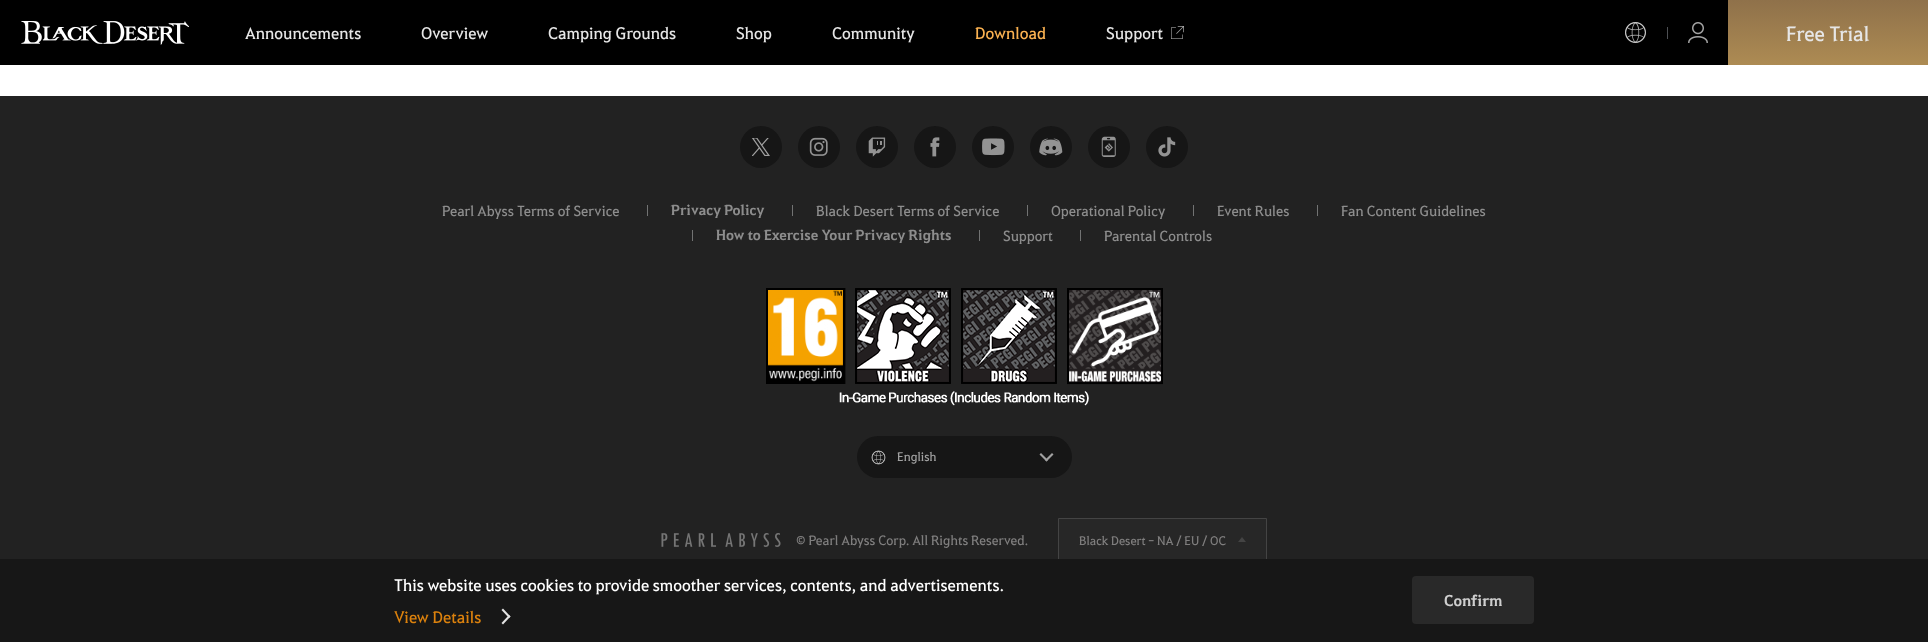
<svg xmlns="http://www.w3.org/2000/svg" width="1928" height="642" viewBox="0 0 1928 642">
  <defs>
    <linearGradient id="g1" gradientUnits="userSpaceOnUse" x1="1828" y1="0" x2="1828" y2="65"><stop offset="0" stop-color="#8f714a"/><stop offset="1" stop-color="#ad8b53"/></linearGradient>
  </defs>
  <rect width="100%" height="100%" fill="#fff"/>
  <path d="M0 0h1728v65H0z" fill="#000"/>
  <image x="21" y="21" width="168" height="24" href="img/1.png"/>
  <image x="1171" y="26" width="13" height="13" href="img/2.png"/>
  <image x="1625" y="22" width="21" height="21" href="img/3.png"/>
  <path d="M1667 27h1v12H1667z" fill="#4e5054"/>
  <image x="1688" y="22" width="20" height="21" href="img/4.png"/>
  <path d="M1728 0h200v65H1728z" fill="url(#g1)"/>
  <path d="M0 96h1928v463H0z" fill="#222"/>
  <circle cx="761" cy="147" r="21" fill="#161616"/>
  <image x="752" y="138" width="18" height="18" href="img/5.png"/>
  <circle cx="819" cy="147" r="21" fill="#161616"/>
  <image x="809" y="137" width="19" height="19" href="img/6.png"/>
  <circle cx="877" cy="147" r="21" fill="#161616"/>
  <image x="868" y="137" width="18" height="20" href="img/7.png"/>
  <circle cx="935" cy="147" r="21" fill="#161616"/>
  <image x="930" y="137" width="10" height="20" href="img/8.png"/>
  <circle cx="993" cy="147" r="21" fill="#161616"/>
  <image x="982" y="138" width="23" height="18" href="img/9.png"/>
  <circle cx="1051" cy="147" r="21" fill="#161616"/>
  <image x="1039" y="138" width="24" height="18" href="img/10.png"/>
  <circle cx="1109" cy="147" r="21" fill="#161616"/>
  <image x="1101" y="136" width="15" height="21" href="img/11.png"/>
  <circle cx="1167" cy="147" r="21" fill="#161616"/>
  <image x="1158" y="137" width="18" height="20" href="img/12.png"/>
  <path d="M647 205h1v11H647z" fill="#727373"/>
  <path d="M792 205h1v11H792z" fill="#727373"/>
  <path d="M1027 205h1v11H1027z" fill="#727373"/>
  <path d="M1193 205h1v11H1193z" fill="#727373"/>
  <path d="M1317 205h1v11H1317z" fill="#727373"/>
  <path d="M692 230h1v11H692z" fill="#727373"/>
  <path d="M979 230h1v11H979z" fill="#727373"/>
  <path d="M1080 230h1v11H1080z" fill="#727373"/>
  <image x="766" y="288" width="397" height="118" href="img/13.png"/>
  <rect x="857" y="436" width="215" height="42" rx="21" fill="#161616"/>
  <image x="871" y="450" width="15" height="15" href="img/14.png"/>
  <path d="M1046.5 461.5L1039.5 454.5L1041 453L1048 460Z" fill="#a1a1a1"/>
  <path d="M1046.5 461.5L1045 460L1052 453L1053.5 454.5Z" fill="#a1a1a1"/>
  <image x="661" y="533" width="120" height="14" href="img/15.png"/>
  <path d="M1059 519h207v40H1059z" fill="#272727"/>
  <path d="M1058.5 518.5h208v43H1058.5z" fill="none" stroke="#444"/>
  <path d="M1246 542H1238L1242 537Z" fill="#444"/>
  <path d="M0 559h1928v83H0z" fill="#171717"/>
  <path d="M503 608.5L510.5 616.5L509 618L501.5 610Z" fill="#e4e4e4"/>
  <path d="M509 615L510.5 616.5L503 624.5L501.5 623Z" fill="#e4e4e4"/>
  <rect x="1413" y="577" width="120" height="46" rx="3" fill="#292929" stroke="#292929" stroke-width="2"/>
  <g font-family="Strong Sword" font-size="16" fill="#e6e6e6">
    <text x="245" y="39">Announcements</text>
    <text x="421" y="39">Overview</text>
    <text x="548" y="39">Camping Grounds</text>
    <text x="736" y="39">Shop</text>
    <text x="832" y="39">Community</text>
  </g>
  <text x="975" y="39" font-family="Strong Sword" font-size="16" fill="#fbb251">Download</text>
  <text x="1106" y="39" font-family="Strong Sword" font-size="16" fill="#e6e6e6">Support</text>
  <text x="1786" y="41" font-family="Strong Sword" font-size="20" fill="#e6e6e6">Free Trial</text>
  <text x="442" y="216" font-family="Strong Sword" font-size="14" fill="#8d8d8d">Pearl Abyss Terms of Service</text>
  <text x="671" y="215" font-family="Strong Sword" font-size="14" font-weight="bold" fill="#8d8d8d">Privacy Policy</text>
  <g font-family="Strong Sword" font-size="14" fill="#8d8d8d">
    <text x="816" y="216">Black Desert Terms of Service</text>
    <text x="1051" y="216">Operational Policy</text>
    <text x="1217" y="216">Event Rules</text>
    <text x="1341" y="216">Fan Content Guidelines</text>
  </g>
  <text x="716" y="240" font-family="Strong Sword" font-size="14" font-weight="bold" fill="#8d8d8d">How to Exercise Your Privacy Rights</text>
  <g font-family="Strong Sword" font-size="14" fill="#8d8d8d">
    <text x="1003" y="241">Support</text>
    <text x="1104" y="241">Parental Controls</text>
  </g>
  <text x="897" y="461" font-family="Strong Sword" font-size="12" fill="#a1a1a1">English</text>
  <text x="796" y="545" font-family="Strong Sword" font-size="13" fill="#7f7e7e">© Pearl Abyss Corp. All Rights Reserved.</text>
  <text x="1079" y="545" font-family="Strong Sword" font-size="12" fill="#7f7e7e">Black Desert - NA / EU / OC</text>
  <text x="394" y="591" font-family="Strong Sword" font-size="16" fill="#fff">This website uses cookies to provide smoother services, contents, and advertisements.</text>
  <text x="394" y="623" font-family="Strong Sword" font-size="16" fill="#db810d">View Details</text>
  <text x="1444" y="606" font-family="Strong Sword" font-size="15" font-weight="bold" fill="#cfcfcf">Confirm</text>
</svg>
